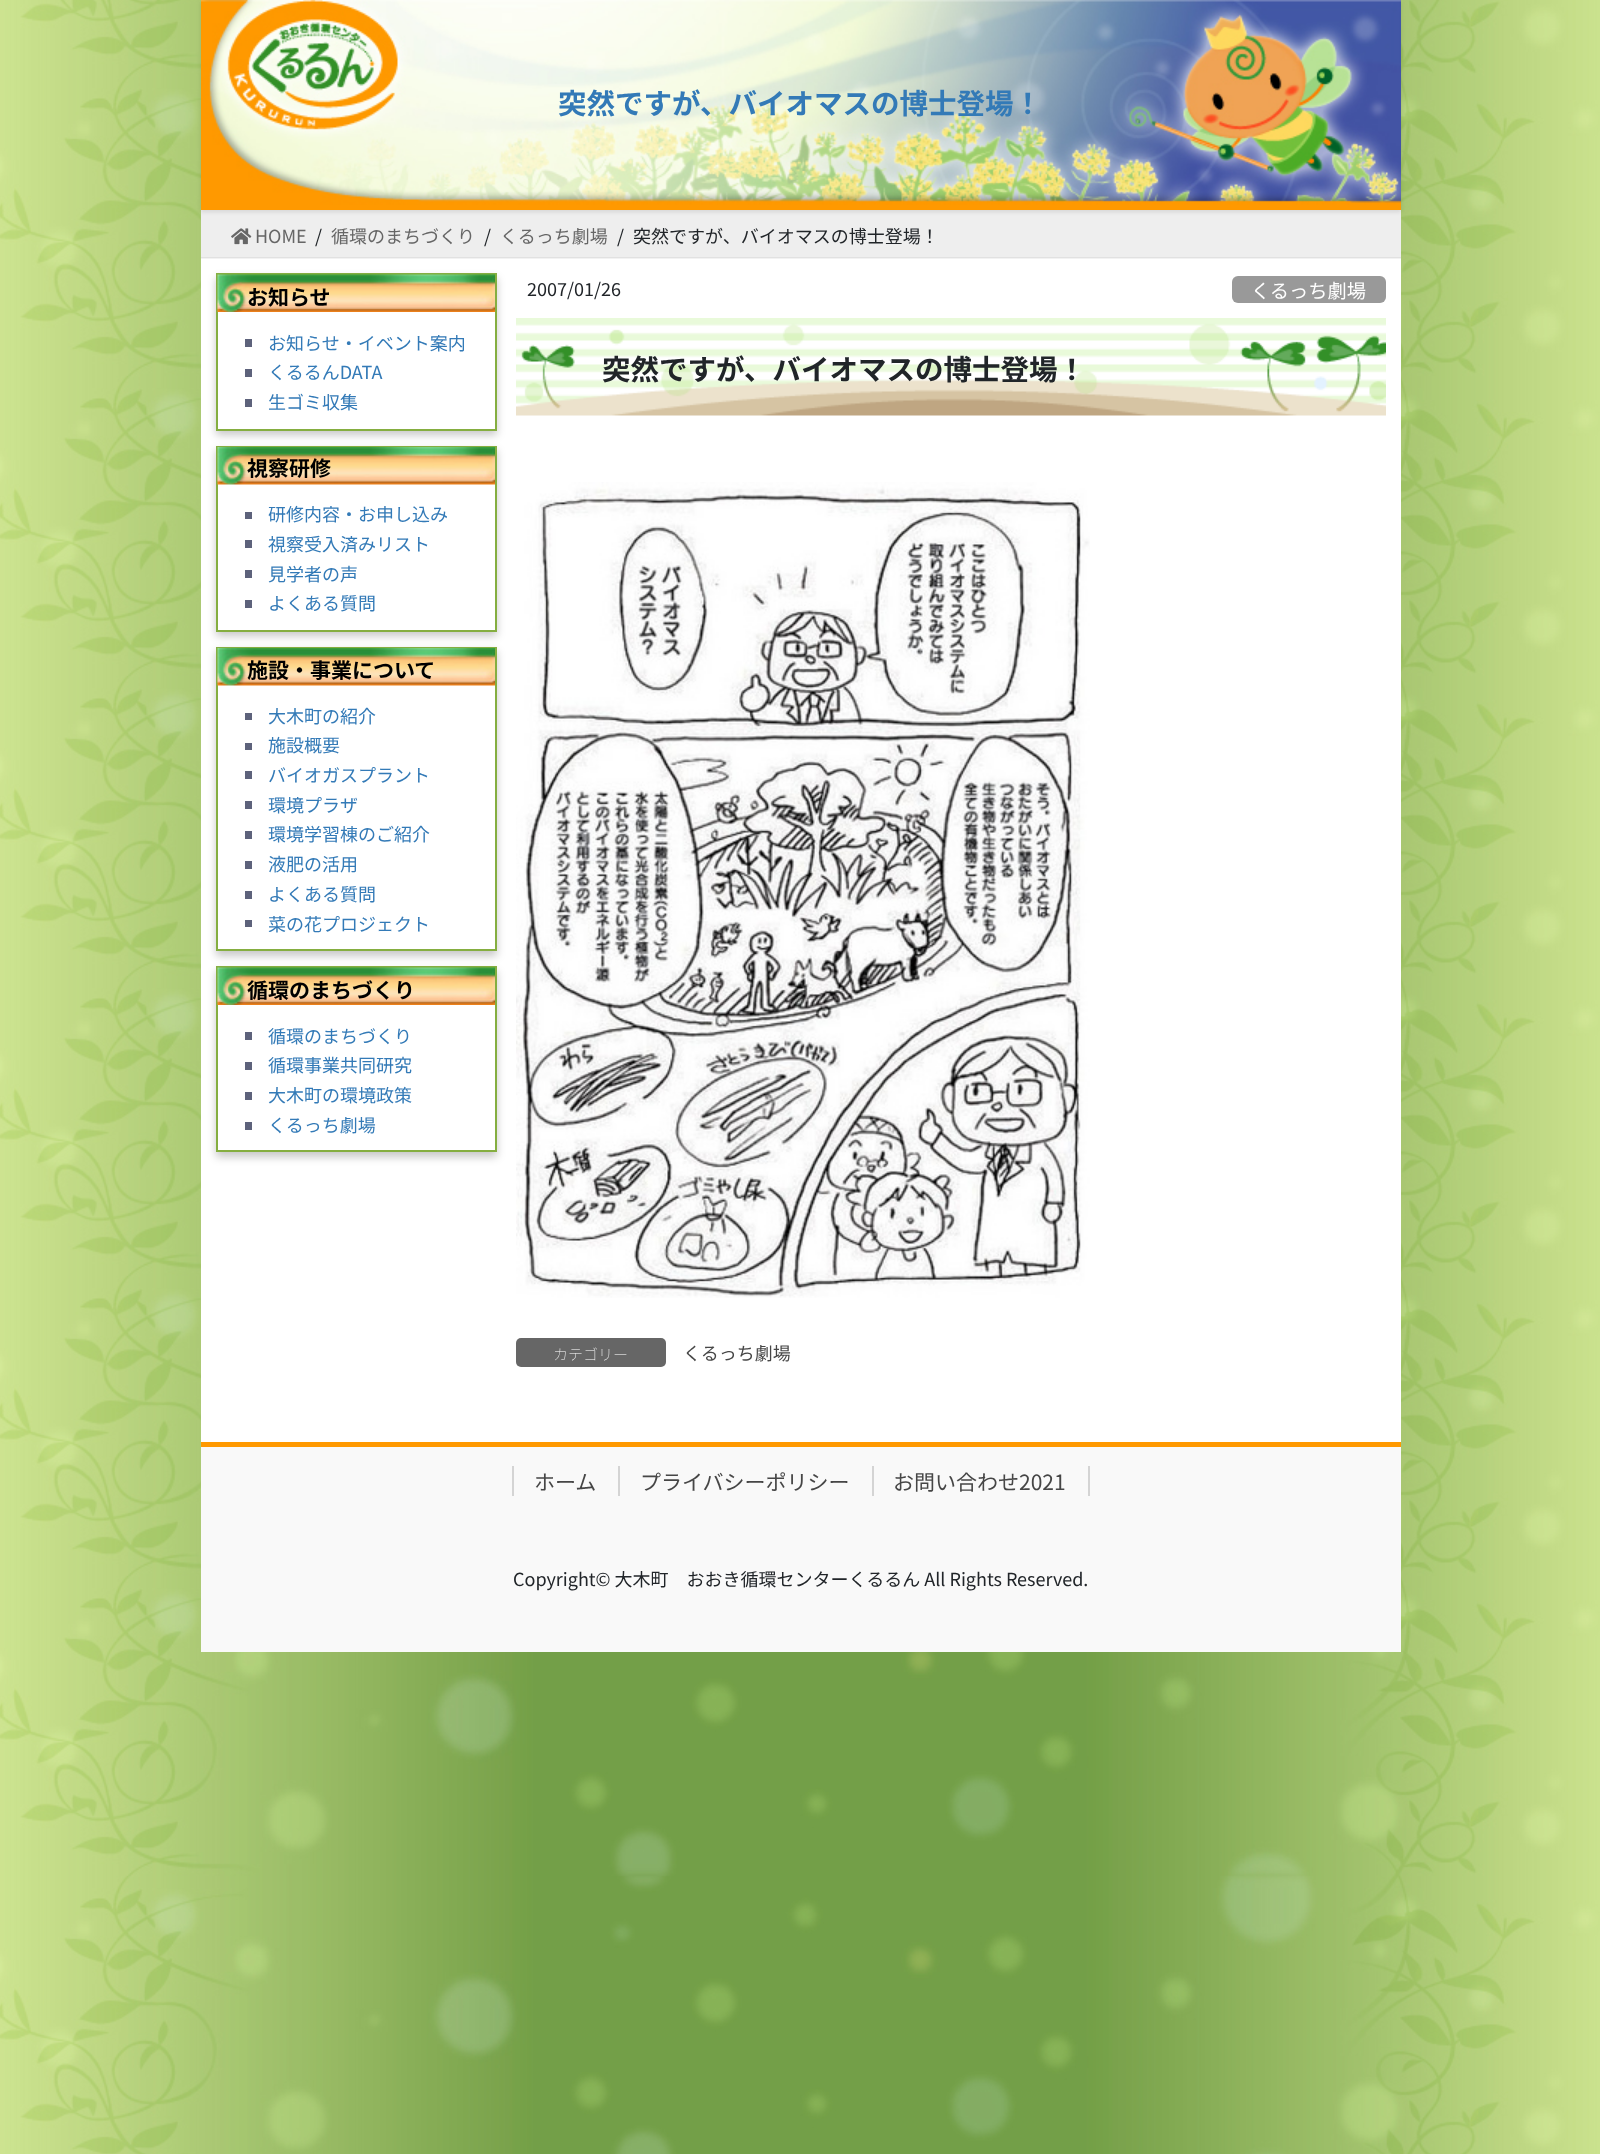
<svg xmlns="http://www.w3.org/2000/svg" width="1600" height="2154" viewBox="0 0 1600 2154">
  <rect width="100%" height="100%" fill="#fff"/>
  <image x="0" y="0" width="1600" height="2154" href="img/1.png"/>
  <path d="M201 258h1200v1184H201z" fill="#fff"/>
  <path d="M201 210h1200v48H201z" fill="#eee"/>
  <path d="M201 2h1200v210H201z" fill="#0000001a" filter="blur(2px)"/>
  <image x="201" y="0" width="1200" height="210" href="img/2.png"/>
  <path d="M201 257h1200v2H201z" fill="#0000000d"/>
  <image x="231" y="228" width="21" height="17" href="img/3.png"/>
  <path d="M216 278h281v157H216z" fill="#00000038" filter="blur(4px)"/>
  <path d="M218 312h277v117H218z" fill="#fff"/>
  <path d="M217 274h279v156H217z" fill="none" stroke="#85ae40" stroke-width="2"/>
  <image x="217" y="274" width="278" height="38" href="img/4.png"/>
  <path d="M245 339h7v8H245z" fill="#5d627b"/>
  <path d="M245 369h7v8H245z" fill="#5d627b"/>
  <path d="M245 399h7v8H245z" fill="#5d627b"/>
  <path d="M216 450h281v186H216z" fill="#00000038" filter="blur(4px)"/>
  <path d="M218 484h277v146H218z" fill="#fff"/>
  <path d="M217 447h279v184H217z" fill="none" stroke="#85ae40" stroke-width="2"/>
  <image x="217" y="447" width="278" height="38" href="img/5.png"/>
  <path d="M245 512h7v7H245z" fill="#5d627b"/>
  <path d="M245 540h7v8H245z" fill="#5d627b"/>
  <path d="M245 570h7v8H245z" fill="#5d627b"/>
  <path d="M245 600h7v8H245z" fill="#5d627b"/>
  <path d="M216 651h281v305H216z" fill="#00000038" filter="blur(4px)"/>
  <path d="M218 685h277v264H218z" fill="#fff"/>
  <path d="M217 648h279v302H217z" fill="none" stroke="#85ae40" stroke-width="2"/>
  <image x="217" y="648" width="278" height="38" href="img/5.png"/>
  <path d="M245 713h7v7H245z" fill="#5d627b"/>
  <path d="M245 743h7v7H245z" fill="#5d627b"/>
  <path d="M245 771h7v8H245z" fill="#5d627b"/>
  <path d="M245 801h7v8H245z" fill="#5d627b"/>
  <path d="M245 831h7v8H245z" fill="#5d627b"/>
  <path d="M245 861h7v8H245z" fill="#5d627b"/>
  <path d="M245 891h7v8H245z" fill="#5d627b"/>
  <path d="M245 920h7v7H245z" fill="#5d627b"/>
  <path d="M216 971h281v186H216z" fill="#00000038" filter="blur(4px)"/>
  <path d="M218 1005h277v145H218z" fill="#fff"/>
  <path d="M217 967h279v184H217z" fill="none" stroke="#85ae40" stroke-width="2"/>
  <image x="217" y="967" width="278" height="38" href="img/4.png"/>
  <path d="M245 1032h7v8H245z" fill="#5d627b"/>
  <path d="M245 1062h7v8H245z" fill="#5d627b"/>
  <path d="M245 1092h7v8H245z" fill="#5d627b"/>
  <path d="M245 1122h7v8H245z" fill="#5d627b"/>
  <rect x="1232" y="276" width="154" height="27" rx="6" fill="#999"/>
  <image x="516" y="318" width="870" height="98" href="img/6.png"/>
  <image x="516" y="482" width="574" height="816" href="img/7.png"/>
  <rect x="516" y="1338" width="150" height="29" rx="5" fill="#666"/>
  <path d="M201 1447h1200v205H201z" fill="#f9f9f9"/>
  <path d="M201 1442h1200v5H201z" fill="#f90"/>
  <path d="M512 1466h2v30H512z" fill="#d4d4d4"/>
  <path d="M618 1466h2v30H618z" fill="#d4d4d4"/>
  <path d="M1088 1466h2v30H1088z" fill="#d4d4d4"/>
  <path d="M872 1466h2v30H872z" fill="#d4d4d4"/>
  <text x="558" y="114" font-family="Noto Sans JP" font-size="28.5" font-weight="bold" fill="#337ab7">突然ですが、バイオマスの博士登場！</text>
  <text x="255" y="243" font-family="Noto Sans JP" font-size="18" fill="#666">HOME</text>
  <text x="315" y="243" font-family="Noto Sans JP" font-size="18" fill="#212529">/</text>
  <text x="331" y="243" font-family="Noto Sans JP" font-size="18" fill="#666">循環のまちづくり</text>
  <text x="484" y="243" font-family="Noto Sans JP" font-size="18" fill="#212529">/</text>
  <text x="500" y="243" font-family="Noto Sans JP" font-size="18" fill="#666">くるっち劇場</text>
  <g font-family="Noto Sans JP" font-size="18" fill="#212529">
    <text x="617" y="243">/</text>
    <text x="633" y="243">突然ですが、バイオマスの博士登場！</text>
  </g>
  <text x="247" y="305" font-family="Noto Sans JP" font-size="21" font-weight="bold" fill="#000">お知らせ</text>
  <g font-family="Noto Sans JP" font-size="18" fill="#337ab7">
    <text x="268" y="350">お知らせ・イベント案内</text>
    <text x="268" y="379">くるるんDATA</text>
    <text x="268" y="409">生ゴミ収集</text>
  </g>
  <text x="247" y="476" font-family="Noto Sans JP" font-size="21" font-weight="bold" fill="#000">視察研修</text>
  <g font-family="Noto Sans JP" font-size="18" fill="#337ab7">
    <text x="268" y="521">研修内容・お申し込み</text>
    <text x="268" y="551">視察受入済みリスト</text>
    <text x="268" y="581">見学者の声</text>
    <text x="268" y="610">よくある質問</text>
  </g>
  <text x="247" y="678" font-family="Noto Sans JP" font-size="21" font-weight="bold" fill="#000">施設・事業について</text>
  <g font-family="Noto Sans JP" font-size="18" fill="#337ab7">
    <text x="268" y="723">大木町の紹介</text>
    <text x="268" y="752">施設概要</text>
    <text x="268" y="782">バイオガスプラント</text>
    <text x="268" y="812">環境プラザ</text>
    <text x="268" y="841">環境学習棟のご紹介</text>
    <text x="268" y="871">液肥の活用</text>
    <text x="268" y="901">よくある質問</text>
    <text x="268" y="931">菜の花プロジェクト</text>
  </g>
  <text x="247" y="998" font-family="Noto Sans JP" font-size="21" font-weight="bold" fill="#000">循環のまちづくり</text>
  <g font-family="Noto Sans JP" font-size="18" fill="#337ab7">
    <text x="268" y="1043">循環のまちづくり</text>
    <text x="268" y="1072">循環事業共同研究</text>
    <text x="268" y="1102">大木町の環境政策</text>
    <text x="268" y="1132">くるっち劇場</text>
  </g>
  <text x="527" y="296" font-family="Noto Sans JP" font-size="18" fill="#212529">2007/01/26</text>
  <text x="1251" y="298" font-family="Noto Sans JP" font-size="19.25" fill="#fff">くるっち劇場</text>
  <text x="602" y="380" font-family="Noto Sans JP" font-size="28.5" font-weight="bold" fill="#212529">突然ですが、バイオマスの博士登場！</text>
  <text x="553" y="1360" font-family="Noto Sans JP" font-size="15" font-weight="100" fill="#fff">カテゴリー</text>
  <text x="683" y="1360" font-family="Noto Sans JP" font-size="18" fill="#464646">くるっち劇場</text>
  <g font-family="Noto Sans JP" font-size="21" fill="#464646">
    <text x="534" y="1490">ホーム</text>
    <text x="640" y="1490">プライバシーポリシー</text>
    <text x="893" y="1490">お問い合わせ2021</text>
  </g>
  <text x="513" y="1586" font-family="Noto Sans JP" font-size="18" fill="#212529">Copyright© 大木町　おおき循環センターくるるん All Rights Reserved.</text>
</svg>
